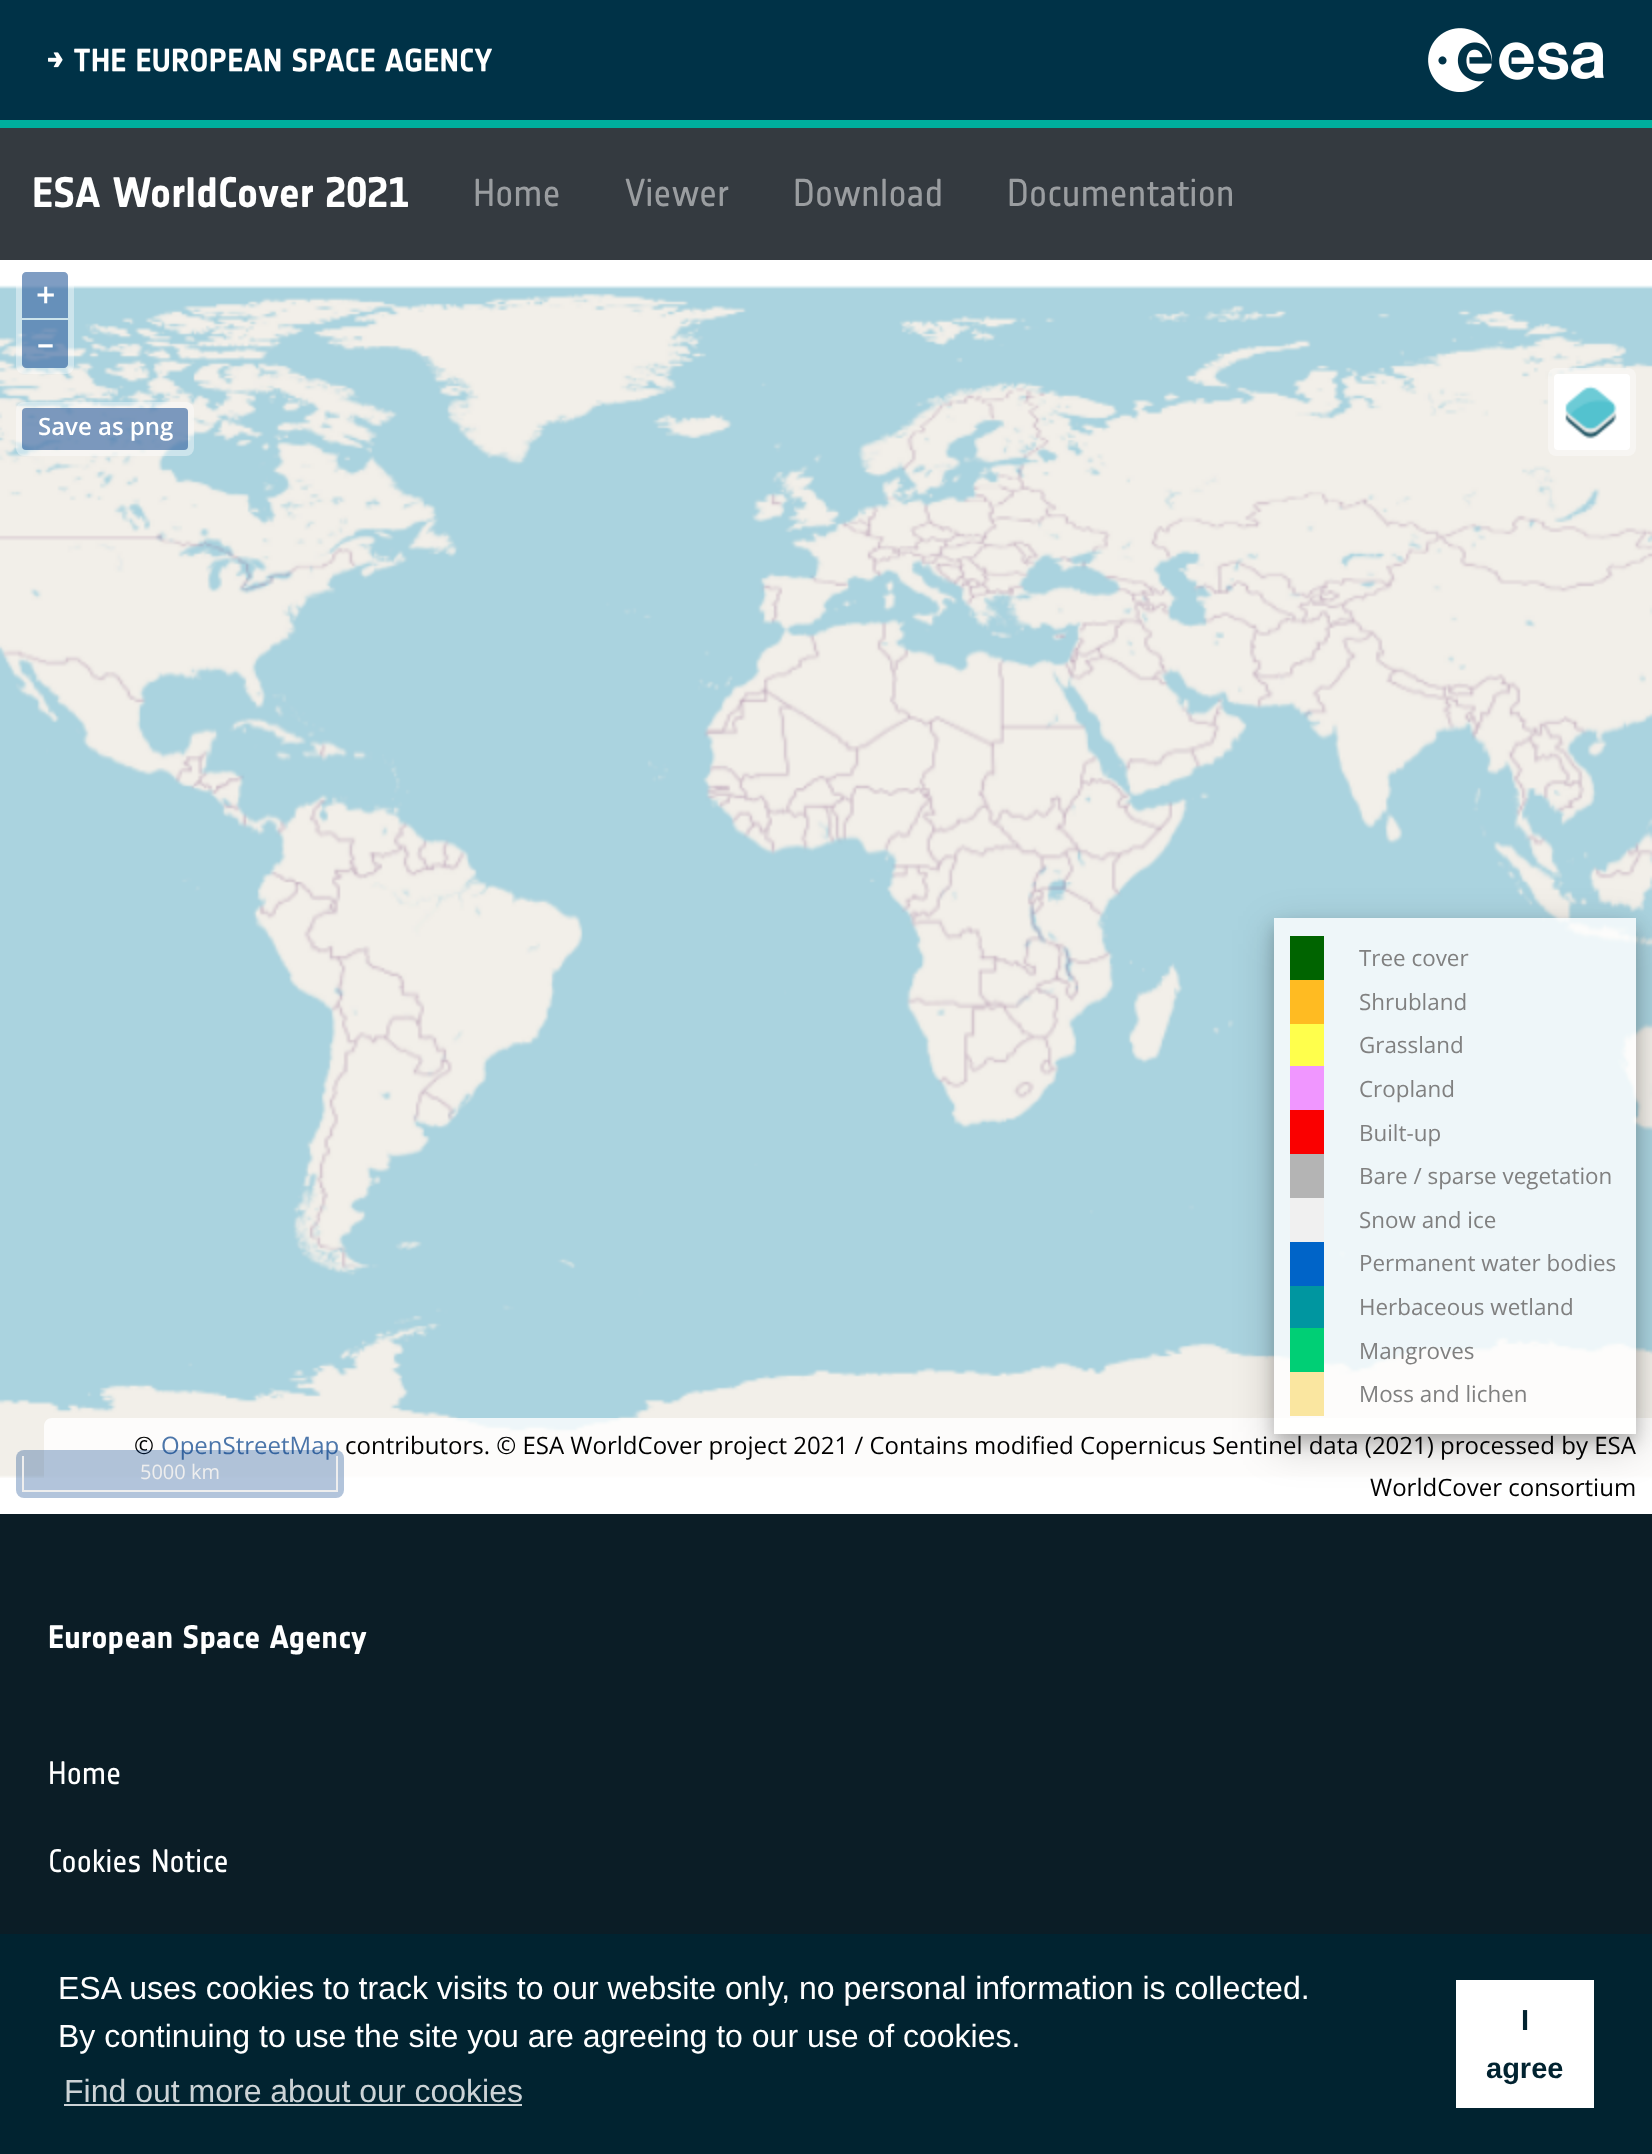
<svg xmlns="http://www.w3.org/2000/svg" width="1652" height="2154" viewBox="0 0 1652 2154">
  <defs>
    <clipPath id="clip1"><path d="M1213 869H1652V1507H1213ZM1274 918H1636V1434H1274Z" clip-rule="evenodd"/></clipPath>
    <clipPath id="clip2"><path d="M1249 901H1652V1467H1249ZM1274 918H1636V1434H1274Z" clip-rule="evenodd"/></clipPath>
  </defs>
  <rect width="100%" height="100%" fill="#fff"/>
  <path d="M0 0h1652v120H0z" fill="#003247"/>
  <path d="M0 120h1652v8H0z" fill="#00ae9d"/>
  <image x="48" y="48" width="444" height="24" href="img/1.png"/>
  <image x="1428" y="28" width="176" height="64" href="img/2.png"/>
  <path d="M0 128h1652v132H0z" fill="#343a40"/>
  <image x="0" y="285" width="1652" height="1193" href="img/3.png"/>
  <rect x="16" y="266" width="58" height="108" rx="8" fill="#ffffff66"/>
  <path d="M26 272H64C66 272 68 274 68 276V318H22V276C22 274 24 272 26 272Z" fill="#003c8880"/>
  <path d="M22 320H68V364C68 366 66 368 64 368H26C24 368 22 366 22 364Z" fill="#003c8880"/>
  <rect x="1548" y="368" width="88" height="88" rx="8" fill="#ffffff66"/>
  <rect x="1554" y="374" width="76" height="76" rx="4" fill="#fff"/>
  <image x="1565" y="385" width="52" height="54" href="img/4.png"/>
  <path d="M52 1418H1652V1514H44V1426C44 1421.5 47.5 1418 52 1418Z" fill="#ffffffcc"/>
  <rect x="16" y="402" width="178" height="54" rx="8" fill="#ffffff66"/>
  <rect x="22" y="408" width="166" height="42" rx="4" fill="#003c8880"/>
  <g clip-path="url(#clip1)">
    <path d="M1274 930h362v516H1274z" fill="#00000030" filter="blur(20px)"/>
  </g>
  <g clip-path="url(#clip2)">
    <path d="M1274 926h362v516H1274z" fill="#00000033" filter="blur(8px)"/>
  </g>
  <path d="M1274 918h362v516H1274z" fill="#ffffffcc"/>
  <path d="M1290 936h34v44H1290z" fill="#006400"/>
  <path d="M1290 980h34v44H1290z" fill="#fb2"/>
  <path d="M1290 1024h34v42H1290z" fill="#ffff4c"/>
  <path d="M1290 1066h34v44H1290z" fill="#f096ff"/>
  <path d="M1290 1110h34v44H1290z" fill="#fa0000"/>
  <path d="M1290 1154h34v44H1290z" fill="#b4b4b4"/>
  <path d="M1290 1198h34v44H1290z" fill="#f0f0f0"/>
  <path d="M1290 1242h34v44H1290z" fill="#0064c8"/>
  <path d="M1290 1286h34v42H1290z" fill="#0096a0"/>
  <path d="M1290 1328h34v44H1290z" fill="#00cf75"/>
  <path d="M1290 1372h34v44H1290z" fill="#fae6a0"/>
  <path d="M0 1514h1652v420H0z" fill="#0b1d26"/>
  <path d="M0 1934h1652v220H0z" fill="#012330"/>
  <path d="M64 2104h458v2H64z" fill="#ccd3d6"/>
  <path d="M1456 1980h138v128H1456z" fill="#fff"/>
  <text x="32" y="207" font-family="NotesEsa" font-size="42" font-weight="bold" fill="#fff">ESA WorldCover 2021</text>
  <g font-family="NotesEsa" font-size="38.25" fill="#9a9da0">
    <text x="473" y="206">Home</text>
    <text x="625" y="206">Viewer</text>
    <text x="793" y="206">Download</text>
    <text x="1007" y="206">Documentation</text>
  </g>
  <g font-family="Open Sans" font-size="34" font-weight="600" fill="#fff">
    <text x="36" y="307">+</text>
    <text x="37" y="355">–</text>
  </g>
  <text x="134" y="1454" font-family="Open Sans" font-size="24" fill="#000">©</text>
  <text x="161" y="1454" font-family="Open Sans" font-size="24" fill="#4c76aa">OpenStreetMap</text>
  <g font-family="Open Sans" font-size="24" fill="#000">
    <text x="345" y="1454">contributors. © ESA WorldCover project 2021 / Contains modified Copernicus Sentinel data (2021) processed by ESA</text>
    <text x="1370" y="1496">WorldCover consortium</text>
  </g>
  <rect x="16" y="1450" width="328" height="48" rx="8" fill="#003c884d"/>
  <path d="M336 1456h2v36H336z" fill="#eee"/>
  <path d="M22 1490h316v2H22z" fill="#eee"/>
  <path d="M22 1456h2v36H22z" fill="#eee"/>
  <text x="140" y="1479" font-family="Open Sans" font-size="20" fill="#eee">5000 km</text>
  <text x="38" y="435" font-family="Open Sans" font-size="24" font-weight="600" fill="#fff">Save as png</text>
  <g font-family="Open Sans" font-size="22.4" fill="#808080">
    <text x="1359" y="966">Tree cover</text>
    <text x="1359" y="1010">Shrubland</text>
    <text x="1359" y="1053">Grassland</text>
    <text x="1359" y="1097">Cropland</text>
    <text x="1359" y="1141">Built-up</text>
    <text x="1359" y="1184">Bare / sparse vegetation</text>
    <text x="1359" y="1228">Snow and ice</text>
    <text x="1359" y="1271">Permanent water bodies</text>
    <text x="1359" y="1315">Herbaceous wetland</text>
    <text x="1359" y="1359">Mangroves</text>
    <text x="1359" y="1402">Moss and lichen</text>
  </g>
  <text x="48" y="1648" font-family="NotesEsa" font-size="32" font-weight="bold" fill="#fff">European Space Agency</text>
  <g font-family="NotesEsa" font-size="32" fill="#fff">
    <text x="48" y="1784">Home</text>
    <text x="48" y="1872">Cookies Notice</text>
  </g>
  <g font-family="Liberation Sans" font-size="32" fill="#fff">
    <text x="58" y="1999">ESA uses cookies to track visits to our website only, no personal information is collected.</text>
    <text x="58" y="2047">By continuing to use the site you are agreeing to our use of cookies.</text>
  </g>
  <text x="64" y="2102" font-family="Liberation Sans" font-size="32" fill="#ccd3d6">Find out more about our cookies</text>
  <g font-family="Liberation Sans" font-size="29" font-weight="bold" fill="#012330">
    <text x="1521" y="2030">I</text>
    <text x="1486" y="2078">agree</text>
  </g>
</svg>
